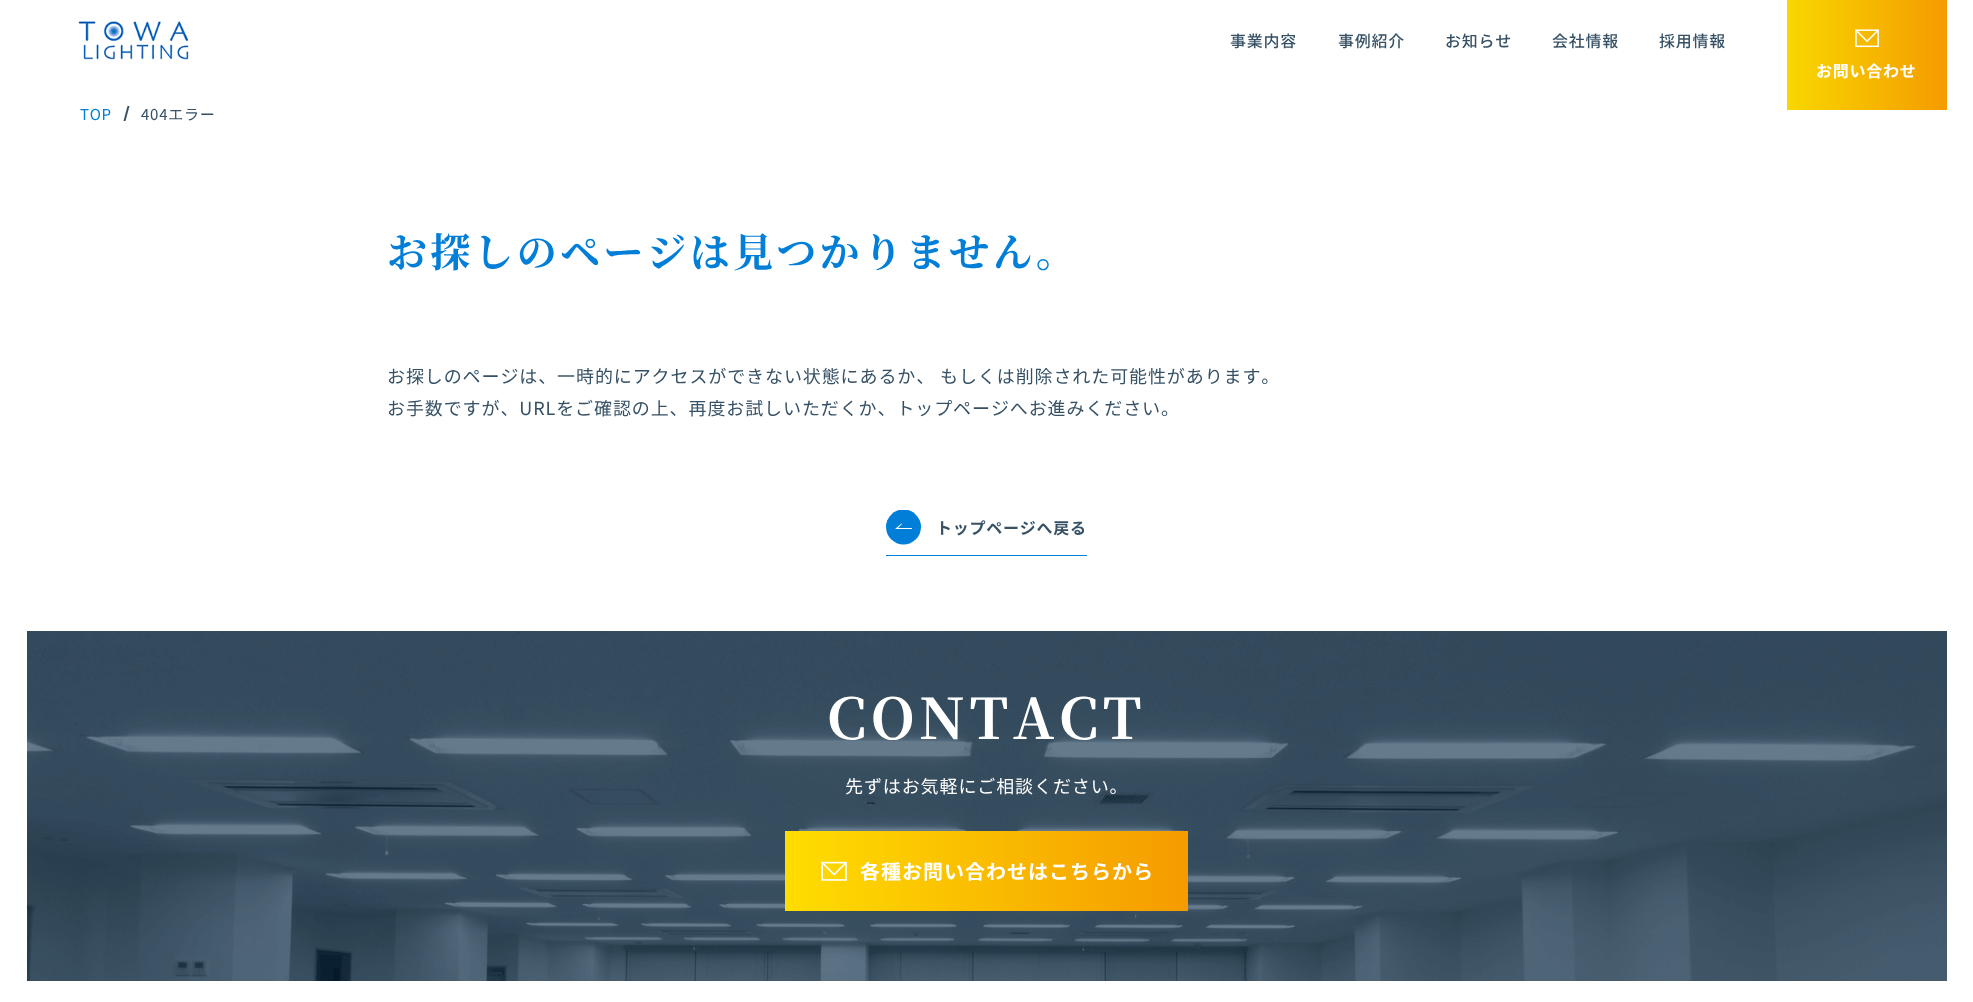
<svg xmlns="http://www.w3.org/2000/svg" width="1973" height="1002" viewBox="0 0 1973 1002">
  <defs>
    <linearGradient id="g1" gradientUnits="userSpaceOnUse" x1="1787" y1="55" x2="1947" y2="55"><stop offset="0" stop-color="#f8d700"/><stop offset="1" stop-color="#f59b00"/></linearGradient>
    <clipPath id="clip1"><path d="M886 510h35v35H886z"/></clipPath>
    <linearGradient id="g2" gradientUnits="userSpaceOnUse" x1="785" y1="871" x2="1188" y2="871"><stop offset="0" stop-color="#fd0"/><stop offset="1" stop-color="#f59b00"/></linearGradient>
  </defs>
  <rect width="100%" height="100%" fill="#fff"/>
  <image x="78" y="21" width="111" height="39" href="img/1.png"/>
  <path d="M1787 0h160v110H1787z" fill="url(#g1)"/>
  <image x="1855" y="29" width="24" height="19" href="img/2.png"/>
  <path d="M127.5 106H129.5L125.5 121H123.5Z" fill="#365165"/>
  <g clip-path="url(#clip1)">
    <circle cx="903.5" cy="527" r="17.5" fill="#007ed8"/>
  </g>
  <path d="M895 529H912V528H898L902 524L901.5 523.5Z" fill="#fff"/>
  <path d="M886 555h201v1H886z" fill="#007ed8"/>
  <image x="27" y="631" width="1920" height="350" href="img/3.png"/>
  <path d="M785 831h403v80H785z" fill="url(#g2)"/>
  <image x="821" y="861" width="26" height="20" href="img/4.png"/>
  <g font-family="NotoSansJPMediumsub" font-size="16" font-weight="500" letter-spacing="0.75" fill="#365165">
    <text x="1230" y="47">事業内容</text>
    <text x="1338" y="47">事例紹介</text>
    <text x="1445" y="47">お知らせ</text>
    <text x="1552" y="47">会社情報</text>
    <text x="1659" y="47">採用情報</text>
  </g>
  <text x="1816" y="77" font-family="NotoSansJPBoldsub" font-size="16" font-weight="bold" letter-spacing="0.75" fill="#fff">お問い合わせ</text>
  <text x="80" y="120" font-family="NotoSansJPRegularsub" font-size="15" letter-spacing="0.75" fill="#007ed8">TOP</text>
  <text x="141" y="120" font-family="NotoSansJPRegularsub" font-size="15" letter-spacing="0.75" fill="#365165">404エラー</text>
  <text x="387" y="267" font-family="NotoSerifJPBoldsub" font-size="40" font-weight="bold" letter-spacing="3.25" fill="#007ed8">お探しのページは見つかりません。</text>
  <g font-family="NotoSansJPRegularsub" font-size="18" letter-spacing="0.9" fill="#365165">
    <text x="387" y="383">お探しのページは、一時的にアクセスができない状態にあるか、 もしくは削除された可能性があります。</text>
    <text x="387" y="415">お手数ですが、URLをご確認の上、再度お試しいただくか、トップページへお進みください。</text>
  </g>
  <text x="936" y="534" font-family="NotoSansJPBoldsub" font-size="16" font-weight="bold" letter-spacing="0.75" fill="#365165">トップページへ戻る</text>
  <text x="827" y="739" font-family="NotoSerifJPBoldsub" font-size="56" font-weight="bold" letter-spacing="4.5" fill="#fff">CONTACT</text>
  <text x="845" y="793" font-family="NotoSansJPRegularsub" font-size="18" letter-spacing="0.9" fill="#fff">先ずはお気軽にご相談ください。</text>
  <text x="860" y="879" font-family="NotoSansJPBoldsub" font-size="20" font-weight="bold" letter-spacing="1" fill="#fff">各種お問い合わせはこちらから</text>
</svg>
